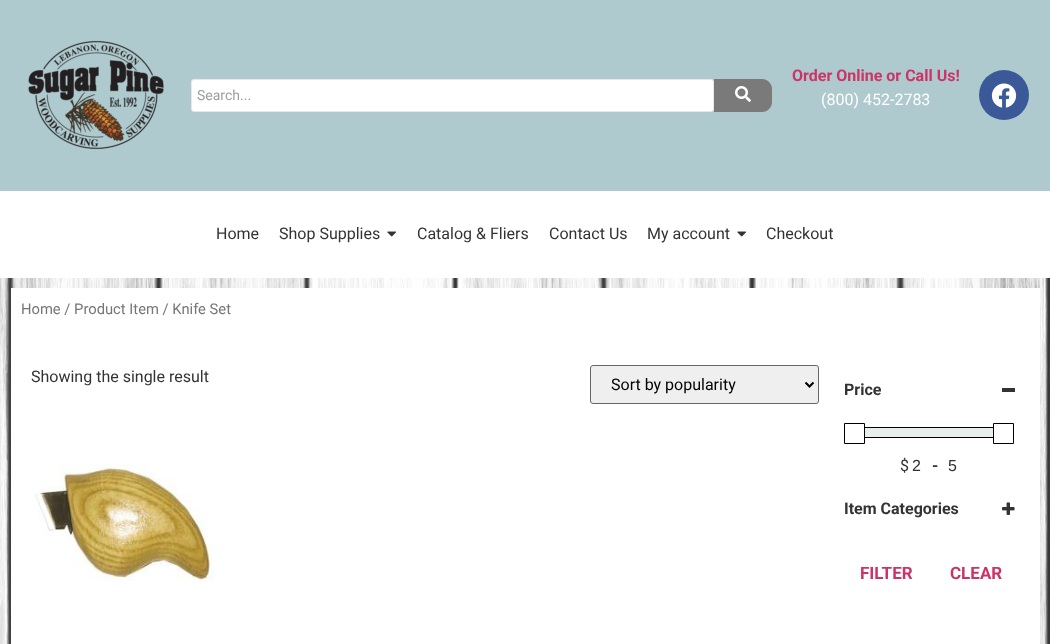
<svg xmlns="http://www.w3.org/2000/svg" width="1050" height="644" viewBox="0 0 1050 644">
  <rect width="100%" height="100%" fill="#fff"/>
  <image x="0" y="278" width="1050" height="366" href="img/1.png"/>
  <path d="M0 0h1050v191H0z" fill="#aecace"/>
  <image x="28" y="40" width="136" height="110" href="img/2.png"/>
  <rect x="191.5" y="79.5" width="522" height="32" rx="2.5" fill="#fff" stroke="#e8e8e8"/>
  <path d="M714 79H762C767.5 79 772 83.5 772 89V102C772 107.5 767.5 112 762 112H714Z" fill="#7a7a7a"/>
  <image x="735" y="86" width="16" height="16" href="img/3.png"/>
  <circle cx="1004" cy="95" r="25" fill="#3b5998"/>
  <image x="991" y="83" width="26" height="25" href="img/4.png"/>
  <image x="387" y="231" width="9" height="6" href="img/5.png"/>
  <image x="737" y="231" width="9" height="6" href="img/5.png"/>
  <path d="M11 288h1029v356H11z" fill="#fff"/>
  <rect x="590.5" y="365.5" width="228" height="38" rx="2.5" fill="#efefef" stroke="#666"/>
  <path d="M805.5 382.5L809.5 386.5L813.5 382.5" fill="none" stroke="#000" stroke-width="2"/>
  <image x="34" y="463" width="179" height="118" href="img/6.png"/>
  <path d="M1002 388h13v4H1002z" fill="#333"/>
  <path d="M854.5 427.5h149v10H854.5z" fill="none" stroke="#000"/>
  <path d="M854 427h10v11H854z" fill="#fff"/>
  <path d="M844.5 423.5h20v20H844.5z" fill="none" stroke="#000"/>
  <path d="M865 428h128v9H865z" fill="#e8eded"/>
  <path d="M994 427h10v11H994z" fill="#fff"/>
  <path d="M993.5 423.5h20v20H993.5z" fill="none" stroke="#000"/>
  <image x="1002" y="502" width="13" height="13" href="img/7.png"/>
  <text x="197" y="100" font-family="Roboto" font-size="14" fill="#9e9e9e">Search...</text>
  <text x="792" y="81" font-family="Roboto" font-size="16" font-weight="bold" fill="#c36">Order Online or Call Us!</text>
  <text x="821" y="105" font-family="Roboto" font-size="16" fill="#fff">(800) 452-2783</text>
  <g font-family="Roboto" font-size="16" fill="#333">
    <text x="216" y="239">Home</text>
    <text x="279" y="239">Shop Supplies</text>
    <text x="417" y="239">Catalog &amp; Fliers</text>
    <text x="549" y="239">Contact Us</text>
    <text x="647" y="239">My account</text>
    <text x="766" y="239">Checkout</text>
  </g>
  <text x="21" y="314" font-family="Roboto" font-size="14.75" fill="#767676">Home / Product Item / Knife Set</text>
  <text x="31" y="382" font-family="Roboto" font-size="16" fill="#333">Showing the single result</text>
  <text x="611" y="390" font-family="Roboto" font-size="16" fill="#000">Sort by popularity</text>
  <text x="844" y="395" font-family="Roboto" font-size="16" font-weight="bold" fill="#333">Price</text>
  <text x="900" y="471" font-family="Roboto" font-size="16" fill="#333">$</text>
  <text x="912" y="471" font-family="Liberation Sans" font-size="16" fill="#333">2</text>
  <text x="932" y="471" font-family="Roboto" font-size="16" font-weight="bold" fill="#333">-</text>
  <text x="948" y="471" font-family="Liberation Sans" font-size="16" fill="#333">5</text>
  <text x="844" y="514" font-family="Roboto" font-size="16" font-weight="bold" fill="#333">Item Categories</text>
  <g font-family="Roboto" font-size="17" font-weight="bold" fill="#c36">
    <text x="860" y="579">FILTER</text>
    <text x="950" y="579">CLEAR</text>
  </g>
</svg>
